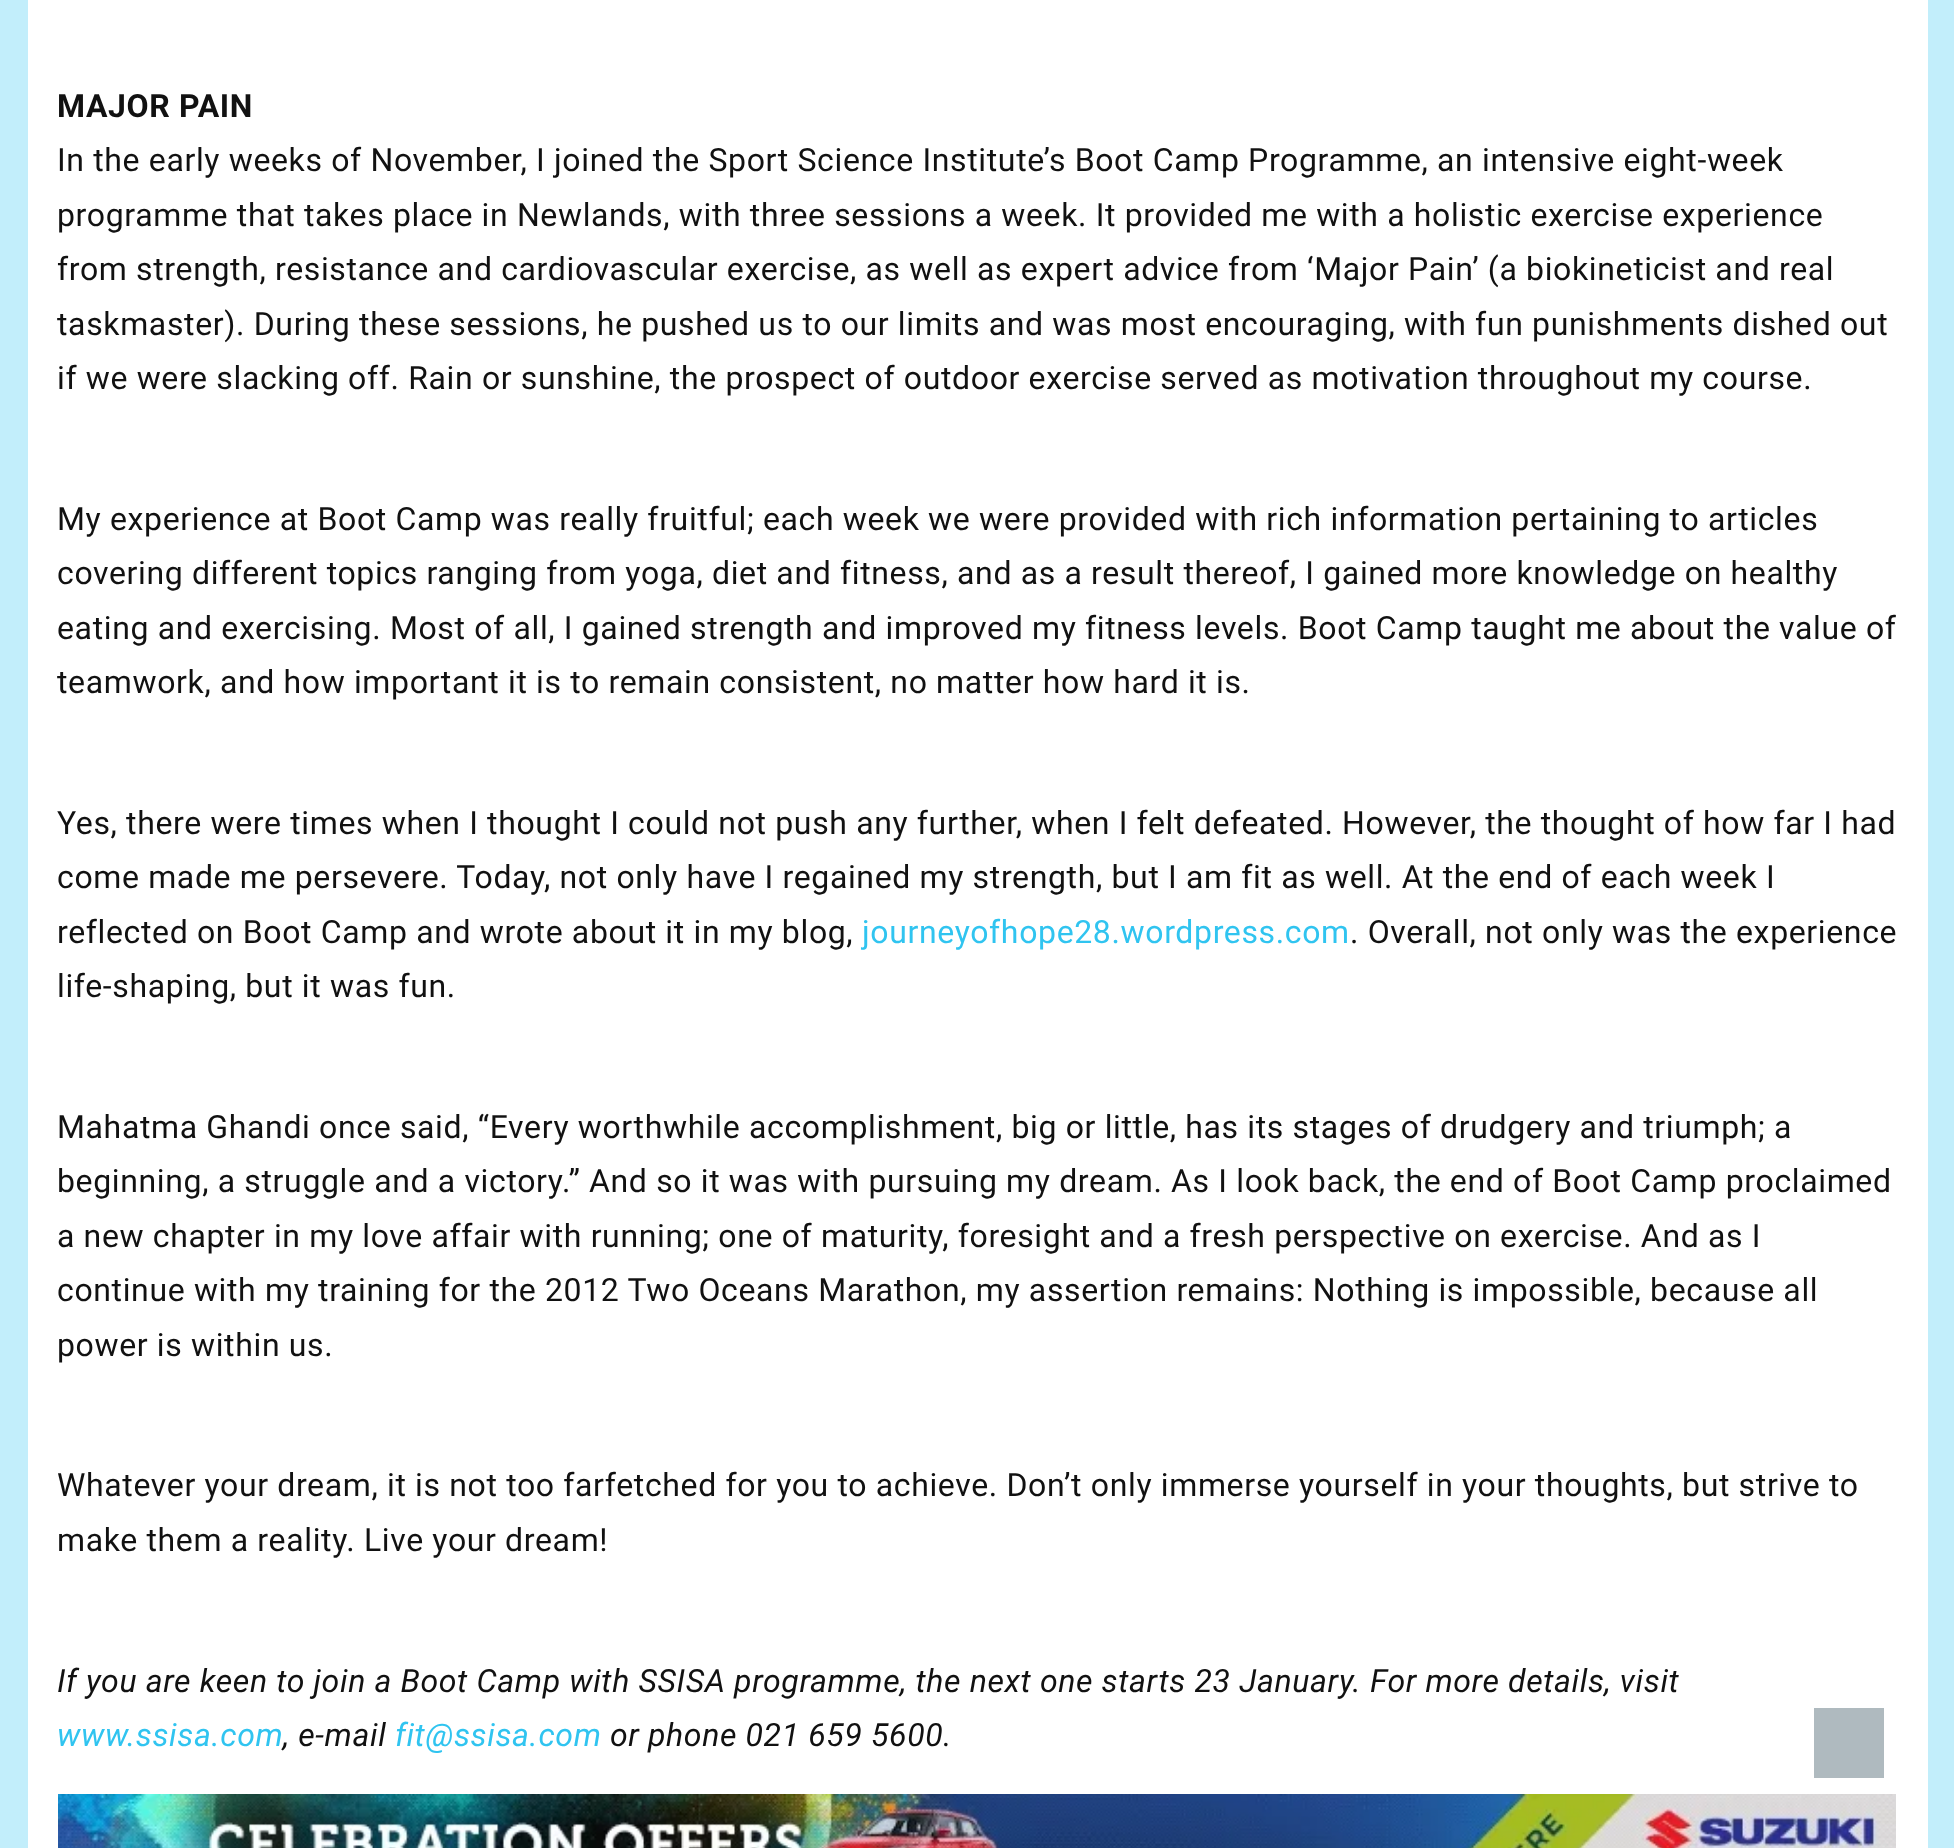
<svg xmlns="http://www.w3.org/2000/svg" width="1954" height="1848" viewBox="0 0 1954 1848">
  <rect width="100%" height="100%" fill="#c2eefb"/>
  <path d="M28 0h1900v1848H28z" fill="#fff"/>
  <image x="58" y="1794" width="1838" height="54" href="img/1.png"/>
  <path d="M1814 1708h70v70H1814z" fill="#afbabf"/>
  <text x="57" y="117" font-family="Roboto" font-size="32" font-weight="bold" letter-spacing="0.64" fill="#111">MAJOR PAIN</text>
  <g font-family="Roboto" font-size="32" letter-spacing="0.64" fill="#111">
    <text x="57" y="171">In the early weeks of November, I joined the Sport Science Institute’s Boot Camp Programme, an intensive eight-week</text>
    <text x="57" y="226">programme that takes place in Newlands, with three sessions a week. It provided me with a holistic exercise experience</text>
    <text x="57" y="280">from strength, resistance and cardiovascular exercise, as well as expert advice from ‘Major Pain’ (a biokineticist and real</text>
    <text x="57" y="335">taskmaster). During these sessions, he pushed us to our limits and was most encouraging, with fun punishments dished out</text>
    <text x="57" y="389">if we were slacking off. Rain or sunshine, the prospect of outdoor exercise served as motivation throughout my course.</text>
    <text x="57" y="530">My experience at Boot Camp was really fruitful; each week we were provided with rich information pertaining to articles</text>
    <text x="57" y="584">covering different topics ranging from yoga, diet and fitness, and as a result thereof, I gained more knowledge on healthy</text>
    <text x="57" y="639">eating and exercising. Most of all, I gained strength and improved my fitness levels. Boot Camp taught me about the value of</text>
    <text x="57" y="693">teamwork, and how important it is to remain consistent, no matter how hard it is.</text>
    <text x="57" y="834">Yes, there were times when I thought I could not push any further, when I felt defeated. However, the thought of how far I had</text>
    <text x="57" y="888">come made me persevere. Today, not only have I regained my strength, but I am fit as well. At the end of each week I</text>
    <text x="57" y="943">reflected on Boot Camp and wrote about it in my blog,</text>
  </g>
  <text x="862" y="943" font-family="Roboto" font-size="32" letter-spacing="0.64" fill="#30c4f0">journeyofhope28.wordpress.com</text>
  <g font-family="Roboto" font-size="32" letter-spacing="0.64" fill="#111">
    <text x="1350" y="943">. Overall, not only was the experience</text>
    <text x="57" y="997">life-shaping, but it was fun.</text>
    <text x="57" y="1138">Mahatma Ghandi once said, “Every worthwhile accomplishment, big or little, has its stages of drudgery and triumph; a</text>
    <text x="57" y="1192">beginning, a struggle and a victory.” And so it was with pursuing my dream. As I look back, the end of Boot Camp proclaimed</text>
    <text x="57" y="1247">a new chapter in my love affair with running; one of maturity, foresight and a fresh perspective on exercise. And as I</text>
    <text x="57" y="1301">continue with my training for the 2012 Two Oceans Marathon, my assertion remains: Nothing is impossible, because all</text>
    <text x="57" y="1356">power is within us.</text>
    <text x="57" y="1496">Whatever your dream, it is not too farfetched for you to achieve. Don’t only immerse yourself in your thoughts, but strive to</text>
    <text x="57" y="1551">make them a reality. Live your dream!</text>
  </g>
  <text x="57" y="1692" font-family="Roboto" font-size="32" font-style="italic" letter-spacing="0.64" fill="#111">If you are keen to join a Boot Camp with SSISA programme, the next one starts 23 January. For more details, visit</text>
  <text x="57" y="1746" font-family="Roboto" font-size="32" font-style="italic" letter-spacing="0.64" fill="#30c4f0">www.ssisa.com</text>
  <text x="283" y="1746" font-family="Roboto" font-size="32" font-style="italic" letter-spacing="0.64" fill="#111">, e-mail</text>
  <text x="395" y="1746" font-family="Roboto" font-size="32" font-style="italic" letter-spacing="0.64" fill="#30c4f0">fit@ssisa.com</text>
  <text x="610" y="1746" font-family="Roboto" font-size="32" font-style="italic" letter-spacing="0.64" fill="#111">or phone 021 659 5600.</text>
</svg>
